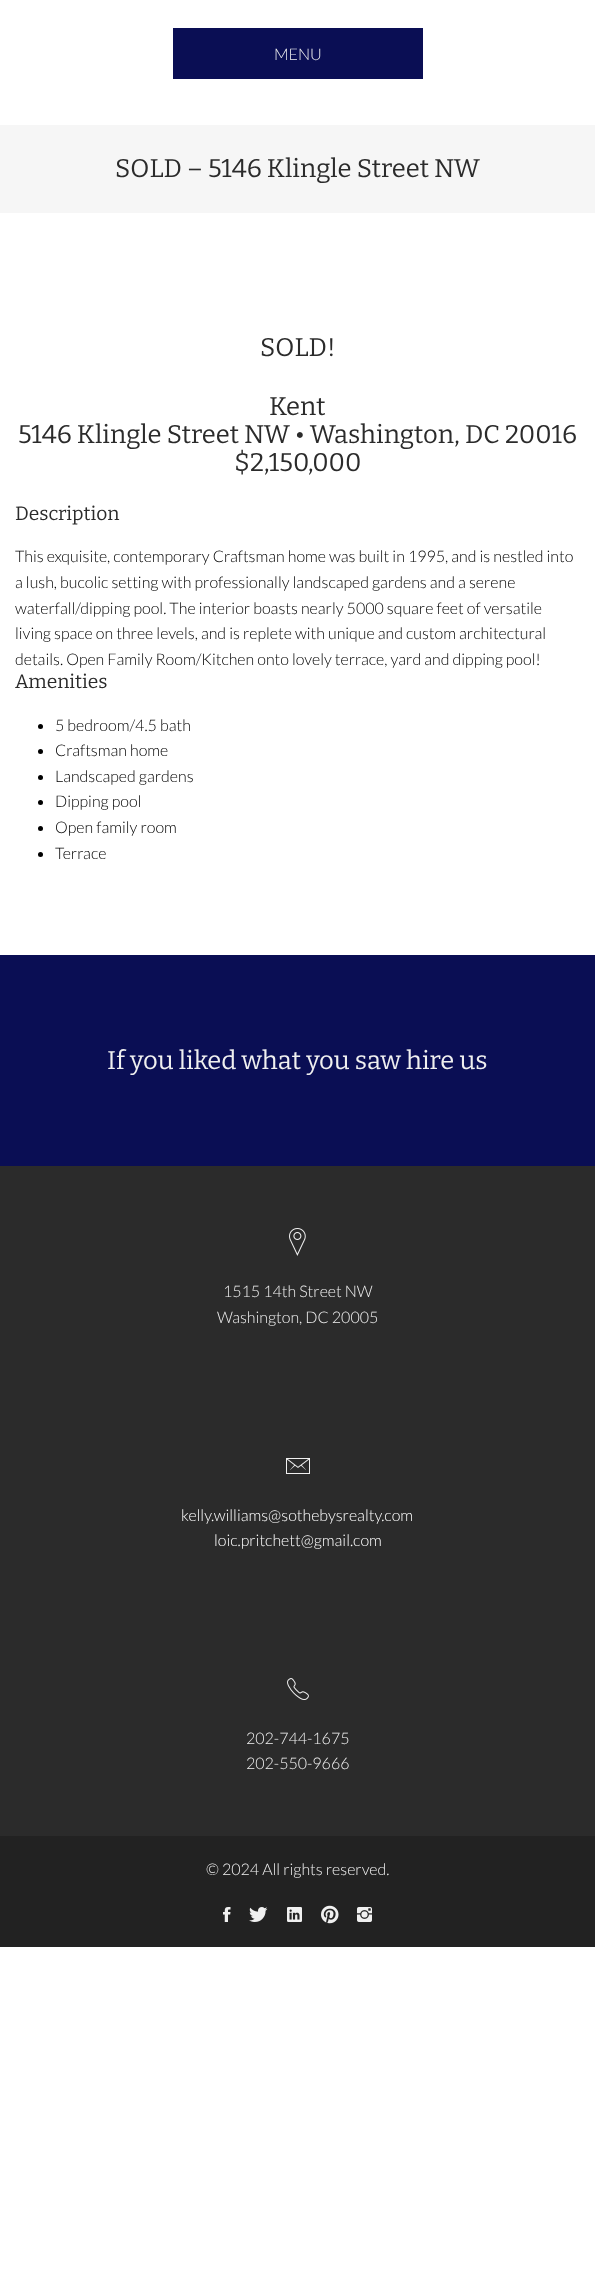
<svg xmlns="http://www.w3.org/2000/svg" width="595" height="2282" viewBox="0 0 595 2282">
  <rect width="100%" height="100%" fill="#fff"/>
  <path d="M173 28h250v51H173z" fill="#0a0e54"/>
  <path d="M0 125h595v88H0z" fill="#f6f6f6"/>
  <circle cx="40.5" cy="726.5" r="2.5" fill="#000"/>
  <circle cx="40.5" cy="751.5" r="2.5" fill="#000"/>
  <circle cx="40.5" cy="777.5" r="2.5" fill="#000"/>
  <circle cx="40.5" cy="802.5" r="2.5" fill="#000"/>
  <circle cx="40.5" cy="828.5" r="2.5" fill="#000"/>
  <circle cx="40.5" cy="854.5" r="2.5" fill="#000"/>
  <path d="M0 955h595v211H0z" fill="#0a0e54"/>
  <path d="M0 1166h595v670H0z" fill="#2b2b2b"/>
  <image x="289" y="1228" width="17" height="28" href="img/1.png"/>
  <image x="286" y="1458" width="24" height="16" href="img/2.png"/>
  <image x="287" y="1678" width="22" height="22" href="img/3.png"/>
  <path d="M0 1836h595v111H0z" fill="#222"/>
  <image x="223" y="1907" width="8" height="15" href="img/4.png"/>
  <image x="249" y="1907" width="19" height="15" href="img/5.png"/>
  <image x="287" y="1907" width="15" height="15" href="img/6.png"/>
  <image x="321" y="1905" width="18" height="19" href="img/7.png"/>
  <image x="357" y="1907" width="15" height="15" href="img/8.png"/>
  <text x="274" y="60" font-family="Lato" font-size="16" font-weight="300" fill="#f0f0f0">MENU</text>
  <g font-family="Bitter" font-size="25.6" font-weight="100" fill="#2b2b2b">
    <text x="115" y="177">SOLD – 5146 Klingle Street NW</text>
    <text x="260" y="356">SOLD!</text>
    <text x="269" y="415">Kent</text>
    <text x="18" y="443">5146 Klingle Street NW • Washington, DC 20016</text>
    <text x="234" y="471">$2,150,000</text>
  </g>
  <text x="15" y="520" font-family="Bitter" font-size="19.25" font-weight="100" fill="#2b2b2b">Description</text>
  <g font-family="Lato" font-size="16" font-weight="300" fill="#000">
    <text x="15" y="562">This exquisite, contemporary Craftsman home was built in 1995, and is nestled into</text>
    <text x="15" y="588">a lush, bucolic setting with professionally landscaped gardens and a serene</text>
    <text x="15" y="614">waterfall/dipping pool. The interior boasts nearly 5000 square feet of versatile</text>
    <text x="15" y="639">living space on three levels, and is replete with unique and custom architectural</text>
    <text x="15" y="665">details. Open Family Room/Kitchen onto lovely terrace, yard and dipping pool!</text>
  </g>
  <text x="15" y="688" font-family="Bitter" font-size="19.25" font-weight="100" fill="#2b2b2b">Amenities</text>
  <g font-family="Lato" font-size="16" font-weight="300" fill="#000">
    <text x="55" y="731">5 bedroom/4.5 bath</text>
    <text x="55" y="756">Craftsman home</text>
    <text x="55" y="782">Landscaped gardens</text>
    <text x="55" y="807">Dipping pool</text>
    <text x="55" y="833">Open family room</text>
    <text x="55" y="859">Terrace</text>
  </g>
  <text x="107" y="1069" font-family="Bitter" font-size="25.6" font-weight="100" fill="#f0f0f0">If you liked what you saw hire us</text>
  <g font-family="Lato" font-size="16" font-weight="300" fill="#f0f0f0">
    <text x="223" y="1297">1515 14th Street NW</text>
    <text x="217" y="1323">Washington, DC 20005</text>
  </g>
  <g font-family="Lato" font-size="16" font-weight="300" fill="#fff">
    <text x="181" y="1521">kelly.williams@sothebysrealty.com</text>
    <text x="214" y="1546">loic.pritchett@gmail.com</text>
  </g>
  <g font-family="Lato" font-size="16" font-weight="300" fill="#f0f0f0">
    <text x="246" y="1744">202-744-1675</text>
    <text x="246" y="1769">202-550-9666</text>
    <text x="206" y="1875">© 2024 All rights reserved.</text>
  </g>
</svg>
